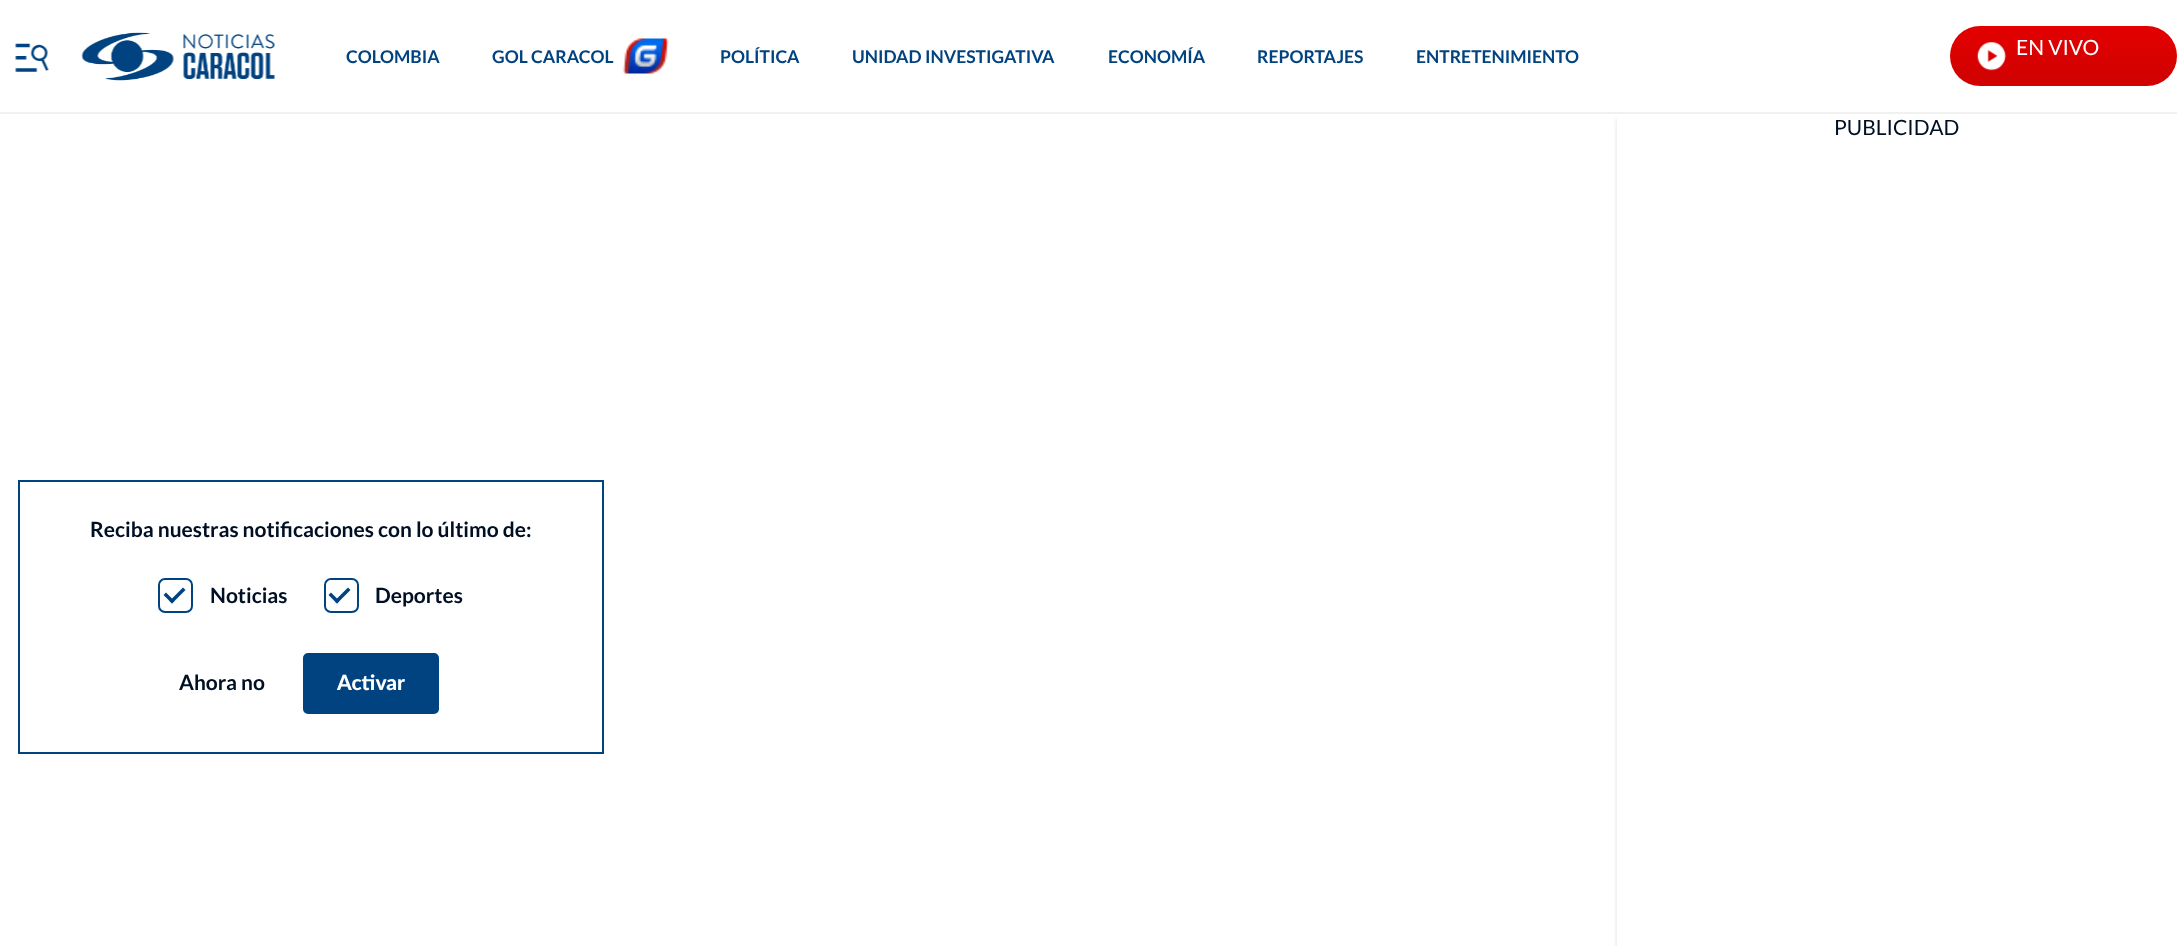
<svg xmlns="http://www.w3.org/2000/svg" width="2177" height="946" viewBox="0 0 2177 946">
  <defs>
    <clipPath id="clip1"><path d="M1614 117h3v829H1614z"/></clipPath>
    <linearGradient id="g1" gradientUnits="userSpaceOnUse" x1="2063" y1="26" x2="2063" y2="86"><stop offset="0" stop-color="#e30000"/><stop offset="1" stop-color="#cf0202"/></linearGradient>
  </defs>
  <rect width="100%" height="100%" fill="#fff"/>
  <g clip-path="url(#clip1)">
    <path d="M1617 119h560v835H1617z" fill="#5656562e" filter="blur(2.5px)"/>
  </g>
  <path d="M0 112h2177v2H0z" fill="#f1f1f1"/>
  <image x="15" y="43" width="34" height="29" href="img/1.png"/>
  <image x="81" y="32" width="194" height="49" href="img/2.png"/>
  <image x="622" y="38" width="47" height="36" href="img/3.png"/>
  <rect x="1950" y="26" width="227" height="60" rx="30" fill="url(#g1)"/>
  <image x="1977" y="42" width="29" height="29" href="img/4.png"/>
  <path d="M19 481h584v272H19z" fill="none" stroke="#004380" stroke-width="2"/>
  <rect x="159" y="579" width="33" height="33" rx="6" fill="none" stroke="#004380" stroke-width="2"/>
  <path d="M183 587.5L185.5 590L172 603.5L169.5 601Z" fill="#004380"/>
  <path d="M166 592.5L174.5 601L172 603.5L163.5 595Z" fill="#004380"/>
  <rect x="325" y="579" width="33" height="33" rx="6" fill="none" stroke="#004380" stroke-width="2"/>
  <path d="M348 587.5L350.5 590L337 603.5L334.5 601Z" fill="#004380"/>
  <path d="M331 592.5L339.5 601L337 603.5L328.5 595Z" fill="#004380"/>
  <rect x="302" y="652" width="138" height="63" rx="6" fill="#004380" stroke="#fff" stroke-width="2"/>
  <g font-family="Lato" font-size="17.5" font-weight="bold" fill="#004380">
    <text x="346" y="63">COLOMBIA</text>
    <text x="492" y="63">GOL CARACOL</text>
    <text x="720" y="63">POLÍTICA</text>
    <text x="852" y="63">UNIDAD INVESTIGATIVA</text>
    <text x="1108" y="63">ECONOMÍA</text>
    <text x="1257" y="63">REPORTAJES</text>
    <text x="1416" y="63">ENTRETENIMIENTO</text>
  </g>
  <text x="2016" y="55" font-family="Lato" font-size="21" fill="#fff">EN VIVO</text>
  <text x="1834" y="135" font-family="Lato" font-size="21" fill="#000f24">PUBLICIDAD</text>
  <g font-family="Lato" font-size="21" font-weight="bold" fill="#000f24">
    <text x="90" y="537">Reciba nuestras notificaciones con lo último de:</text>
    <text x="210" y="603">Noticias</text>
    <text x="375" y="603">Deportes</text>
    <text x="179" y="690">Ahora no</text>
  </g>
  <text x="337" y="690" font-family="Lato" font-size="21" font-weight="900" fill="#fff">Activar</text>
</svg>
